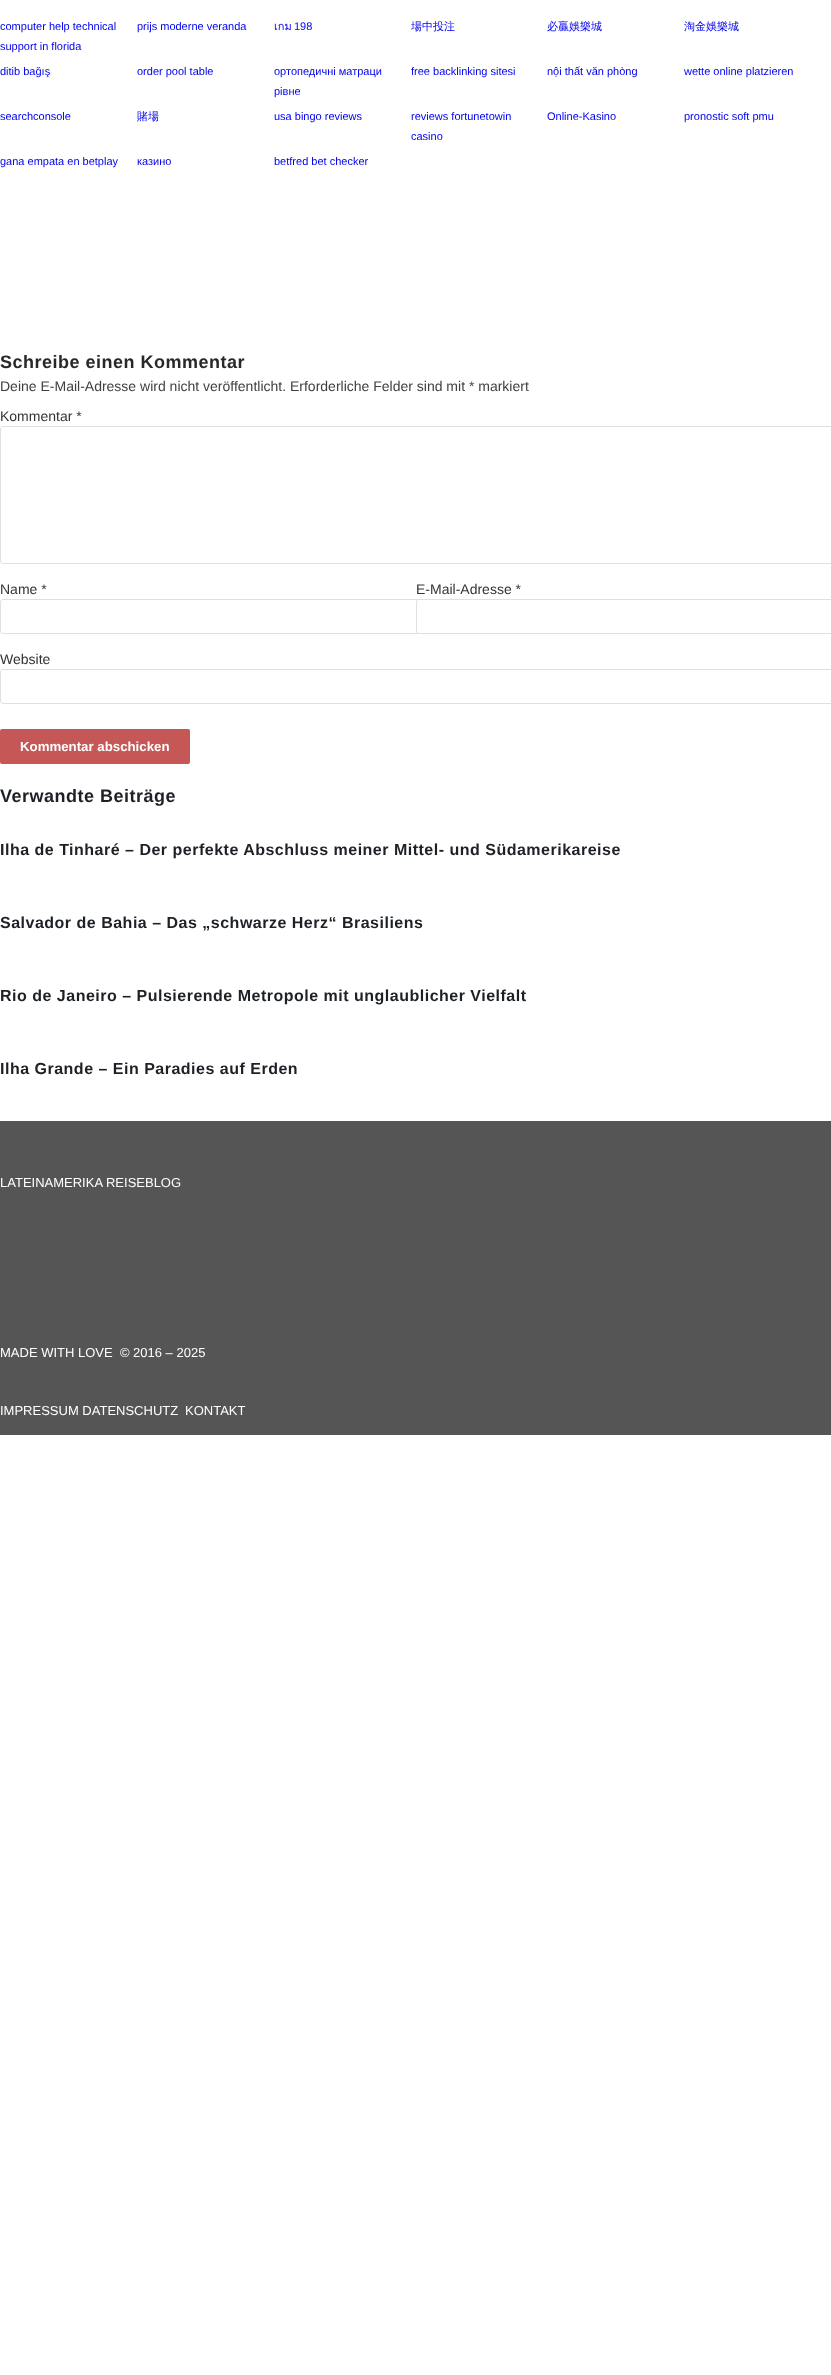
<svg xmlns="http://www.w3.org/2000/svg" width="831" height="2375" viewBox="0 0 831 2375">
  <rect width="100%" height="100%" fill="#fff"/>
  <rect x="0.5" y="426.5" width="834" height="137" rx="2.5" fill="none" stroke="#e0e0e0"/>
  <rect x="0.5" y="599.5" width="428" height="34" rx="2.5" fill="none" stroke="#e0e0e0"/>
  <rect x="416.5" y="599.5" width="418" height="34" rx="2.5" fill="#fff" stroke="#e0e0e0"/>
  <rect x="0.5" y="669.5" width="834" height="34" rx="2.5" fill="none" stroke="#e0e0e0"/>
  <rect y="729" width="190" height="35" rx="2" fill="#c55757"/>
  <path d="M0 1121h831v314H0z" fill="#555"/>
  <g font-family="Liberation Sans" font-size="11" fill="#00e">
    <text x="0" y="30">computer help technical</text>
    <text x="0" y="50">support in florida</text>
    <text x="137" y="30">prijs moderne veranda</text>
  </g>
  <text x="274" y="30" font-family="Loma" font-size="11" fill="#00e">เกม</text>
  <text x="294" y="30" font-family="Liberation Sans" font-size="11" fill="#00e">198</text>
  <g font-family="WenQuanYi Zen Hei" font-size="11" font-weight="500" fill="#00e">
    <text x="411" y="30">場中投注</text>
    <text x="547" y="30">必贏娛樂城</text>
    <text x="684" y="30">淘金娛樂城</text>
  </g>
  <g font-family="Liberation Sans" font-size="11" fill="#00e">
    <text x="0" y="75">ditib bağış</text>
    <text x="137" y="75">order pool table</text>
    <text x="274" y="75">ортопедичні матраци</text>
    <text x="274" y="95">рівне</text>
    <text x="411" y="75">free backlinking sitesi</text>
    <text x="547" y="75">nội thất văn phòng</text>
    <text x="684" y="75">wette online platzieren</text>
    <text x="0" y="120">searchconsole</text>
  </g>
  <text x="137" y="120" font-family="WenQuanYi Zen Hei" font-size="11" font-weight="500" fill="#00e">賭場</text>
  <g font-family="Liberation Sans" font-size="11" fill="#00e">
    <text x="274" y="120">usa bingo reviews</text>
    <text x="411" y="120">reviews fortunetowin</text>
    <text x="411" y="140">casino</text>
    <text x="547" y="120">Online-Kasino</text>
    <text x="684" y="120">pronostic soft pmu</text>
    <text x="0" y="165">gana empata en betplay</text>
    <text x="137" y="165">казино</text>
    <text x="274" y="165">betfred bet checker</text>
  </g>
  <text x="0" y="368" font-family="Liberation Sans" font-size="18" font-weight="bold" letter-spacing="0.5" fill="#282828">Schreibe einen Kommentar</text>
  <text x="0" y="391" font-family="Liberation Sans" font-size="14" fill="#3f3f3f">Deine E-Mail-Adresse wird nicht veröffentlicht. Erforderliche Felder sind mit * markiert</text>
  <g font-family="Liberation Sans" font-size="14" fill="#333">
    <text x="0" y="421">Kommentar *</text>
    <text x="0" y="594">Name *</text>
    <text x="416" y="594">E-Mail-Adresse *</text>
    <text x="0" y="664">Website</text>
  </g>
  <text x="20" y="751" font-family="Liberation Sans" font-size="13.25" font-weight="bold" fill="#fff">Kommentar abschicken</text>
  <text x="0" y="802" font-family="Liberation Sans" font-size="18" font-weight="bold" letter-spacing="0.5" fill="#1d2025">Verwandte Beiträge</text>
  <g font-family="Liberation Sans" font-size="16" font-weight="bold" letter-spacing="0.5" fill="#1d2025">
    <text x="0" y="855">Ilha de Tinharé – Der perfekte Abschluss meiner Mittel- und Südamerikareise</text>
    <text x="0" y="928">Salvador de Bahia – Das „schwarze Herz“ Brasiliens</text>
    <text x="0" y="1001">Rio de Janeiro – Pulsierende Metropole mit unglaublicher Vielfalt</text>
    <text x="0" y="1074">Ilha Grande – Ein Paradies auf Erden</text>
  </g>
  <g font-family="Liberation Sans" font-size="13" fill="#fff">
    <text x="0" y="1187">LATEINAMERIKA REISEBLOG</text>
    <text x="0" y="1357" xml:space="preserve">MADE WITH LOVE  © 2016 – 2025</text>
    <text x="0" y="1415">IMPRESSUM DATENSCHUTZ</text>
    <text x="185" y="1415">KONTAKT</text>
  </g>
</svg>
